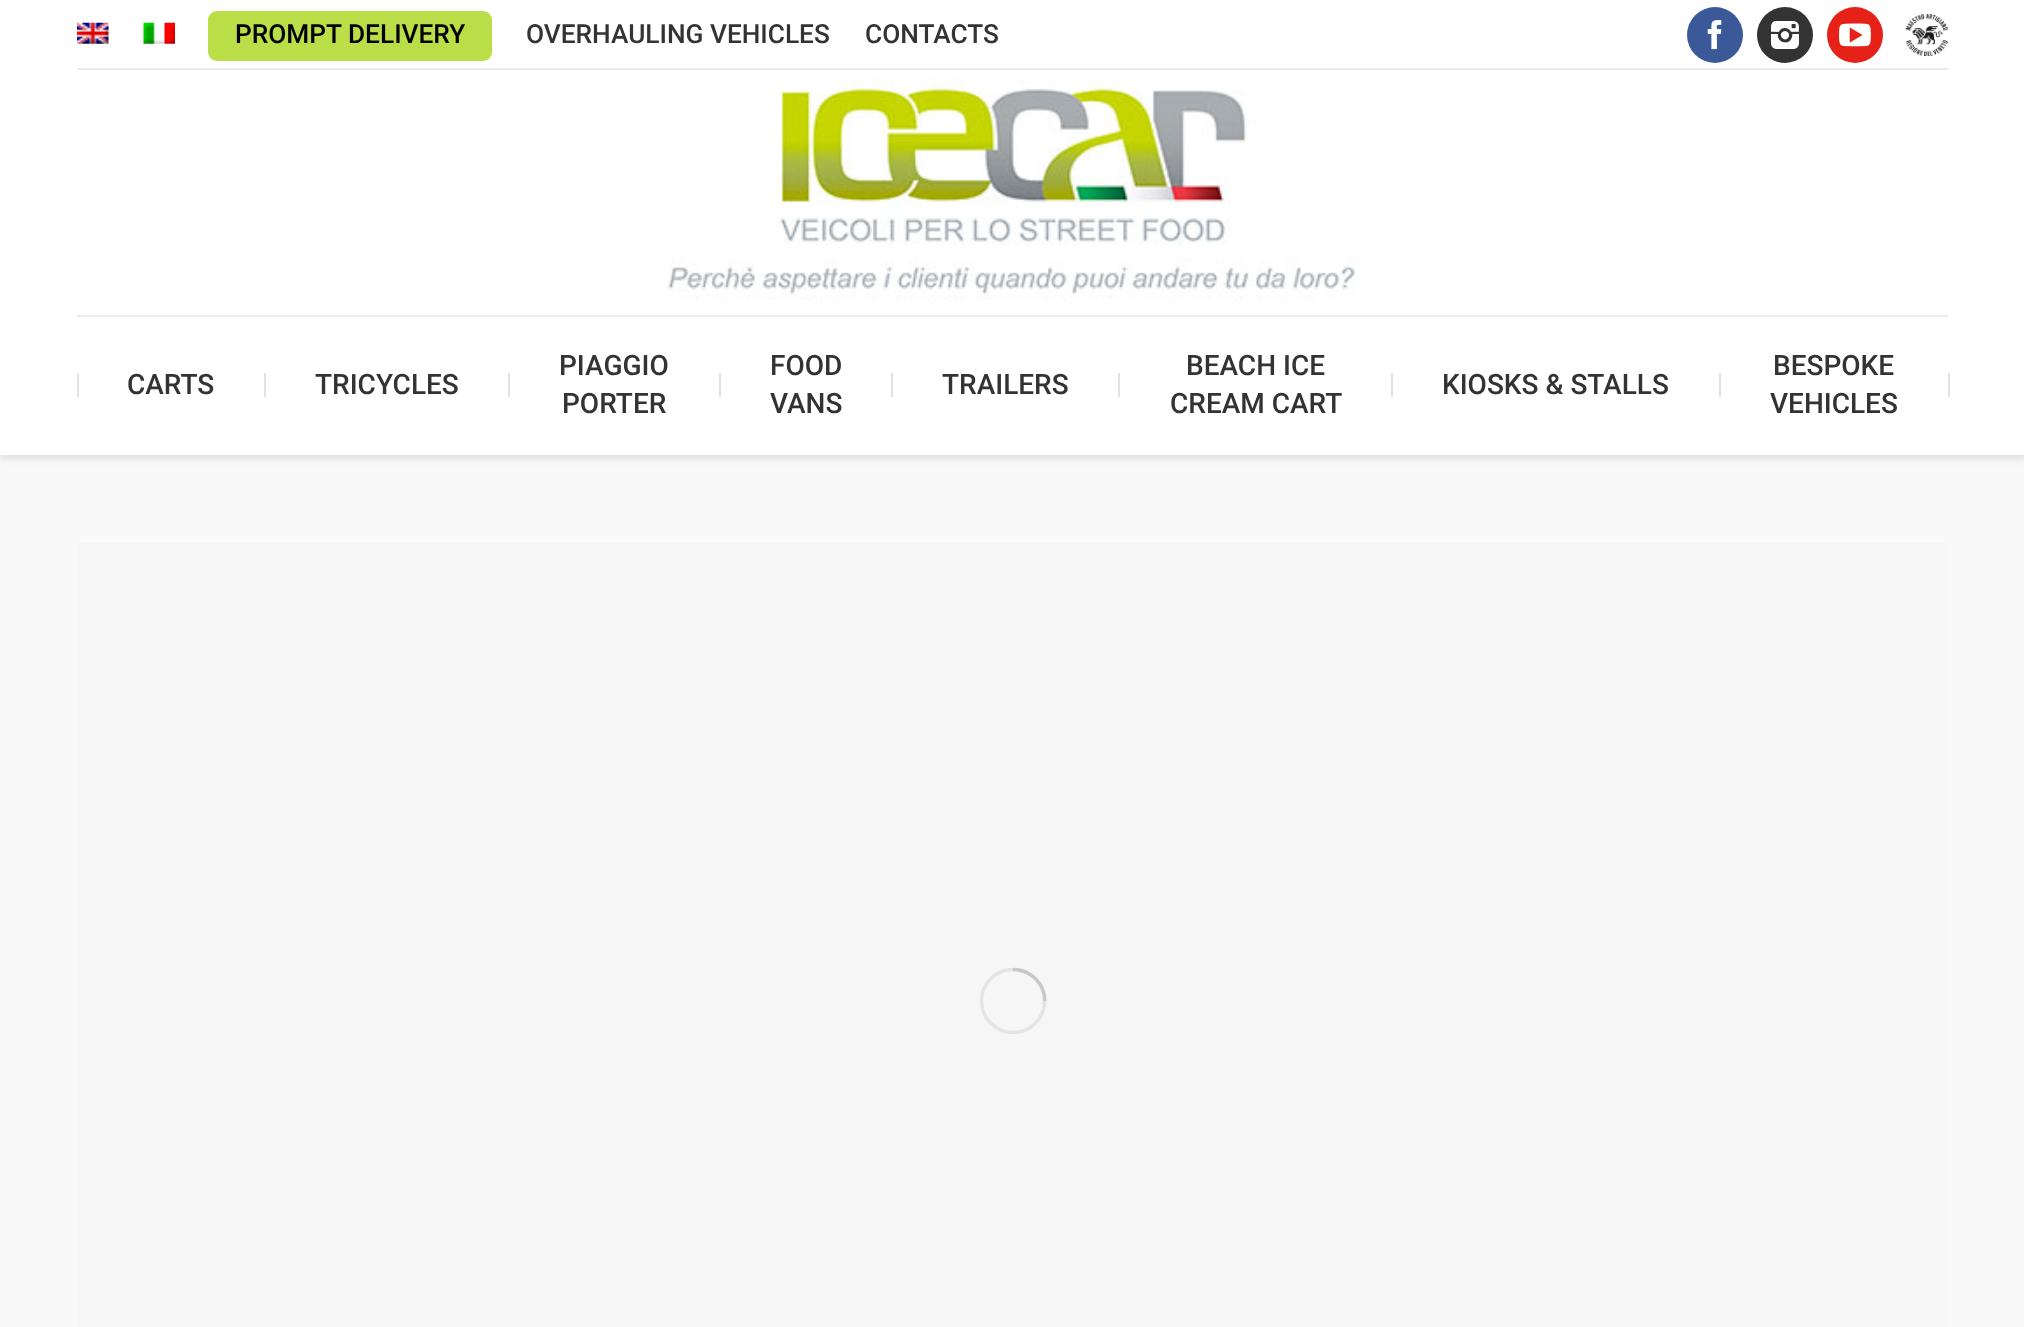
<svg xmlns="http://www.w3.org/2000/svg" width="2024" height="1327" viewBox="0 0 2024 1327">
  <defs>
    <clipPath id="clip1"><path d="M980 968h67v66H980z"/></clipPath>
  </defs>
  <rect width="100%" height="100%" fill="#f9f9f9"/>
  <path d="M0 0h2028v459H0z" fill="#0000001a" filter="blur(3.5px)"/>
  <path d="M0 0h2024v455H0z" fill="#fff"/>
  <image x="77" y="22" width="32" height="22" href="img/1.png"/>
  <image x="143" y="22" width="32" height="22" href="img/2.png"/>
  <rect x="208" y="11" width="284" height="50" rx="9" fill="#b9de47"/>
  <circle cx="1715" cy="35" r="28" fill="#3b5998"/>
  <image x="1707" y="20" width="15" height="30" href="img/3.png"/>
  <circle cx="1785" cy="35" r="28" fill="#333"/>
  <image x="1771" y="21" width="28" height="28" href="img/4.png"/>
  <circle cx="1855" cy="35" r="28" fill="#e62117"/>
  <image x="1839" y="23" width="32" height="24" href="img/5.png"/>
  <image x="1905" y="14" width="43" height="42" href="img/6.png"/>
  <path d="M77 68h1871v2H77z" fill="#ebebeb"/>
  <image x="667" y="77" width="689" height="224" href="img/7.png"/>
  <path d="M77 315h1871v2H77z" fill="#ebebeb"/>
  <path d="M77 373h2v24H77z" fill="#e2e2e2"/>
  <path d="M264 373h2v24H264z" fill="#e2e2e2"/>
  <path d="M508 373h2v24H508z" fill="#e2e2e2"/>
  <path d="M719 373h2v24H719z" fill="#e2e2e2"/>
  <path d="M891 373h2v24H891z" fill="#e2e2e2"/>
  <path d="M1118 373h2v24H1118z" fill="#e2e2e2"/>
  <path d="M1391 373h2v24H1391z" fill="#e2e2e2"/>
  <path d="M1719 373h2v24H1719z" fill="#e2e2e2"/>
  <path d="M1948 373h2v24H1948z" fill="#e2e2e2"/>
  <path d="M77 543h1871v784H77z" fill="#f6f6f6"/>
  <g clip-path="url(#clip1)">
    <circle cx="1013" cy="1001" r="31.5" fill="none" stroke="#e4e4e4" stroke-width="3.5"/>
  </g>
  <path d="M1045 1001C1045 983.5 1030.5 969.5 1013 969.5" fill="none" stroke="#75757540" stroke-width="3.5"/>
  <text x="235" y="43" font-family="Roboto" font-size="26.25" font-weight="500" fill="#000">PROMPT DELIVERY</text>
  <g font-family="Roboto" font-size="26.25" font-weight="500" fill="#333">
    <text x="526" y="43">OVERHAULING VEHICLES</text>
    <text x="865" y="43">CONTACTS</text>
  </g>
  <g font-family="Roboto" font-size="28" font-weight="500" fill="#333">
    <text x="127" y="394">CARTS</text>
    <text x="315" y="394">TRICYCLES</text>
    <text x="559" y="375">PIAGGIO</text>
    <text x="562" y="413">PORTER</text>
    <text x="770" y="375">FOOD</text>
    <text x="770" y="413">VANS</text>
    <text x="942" y="394">TRAILERS</text>
    <text x="1186" y="375">BEACH ICE</text>
    <text x="1170" y="413">CREAM CART</text>
    <text x="1442" y="394">KIOSKS &amp; STALLS</text>
    <text x="1773" y="375">BESPOKE</text>
    <text x="1770" y="413">VEHICLES</text>
  </g>
</svg>
